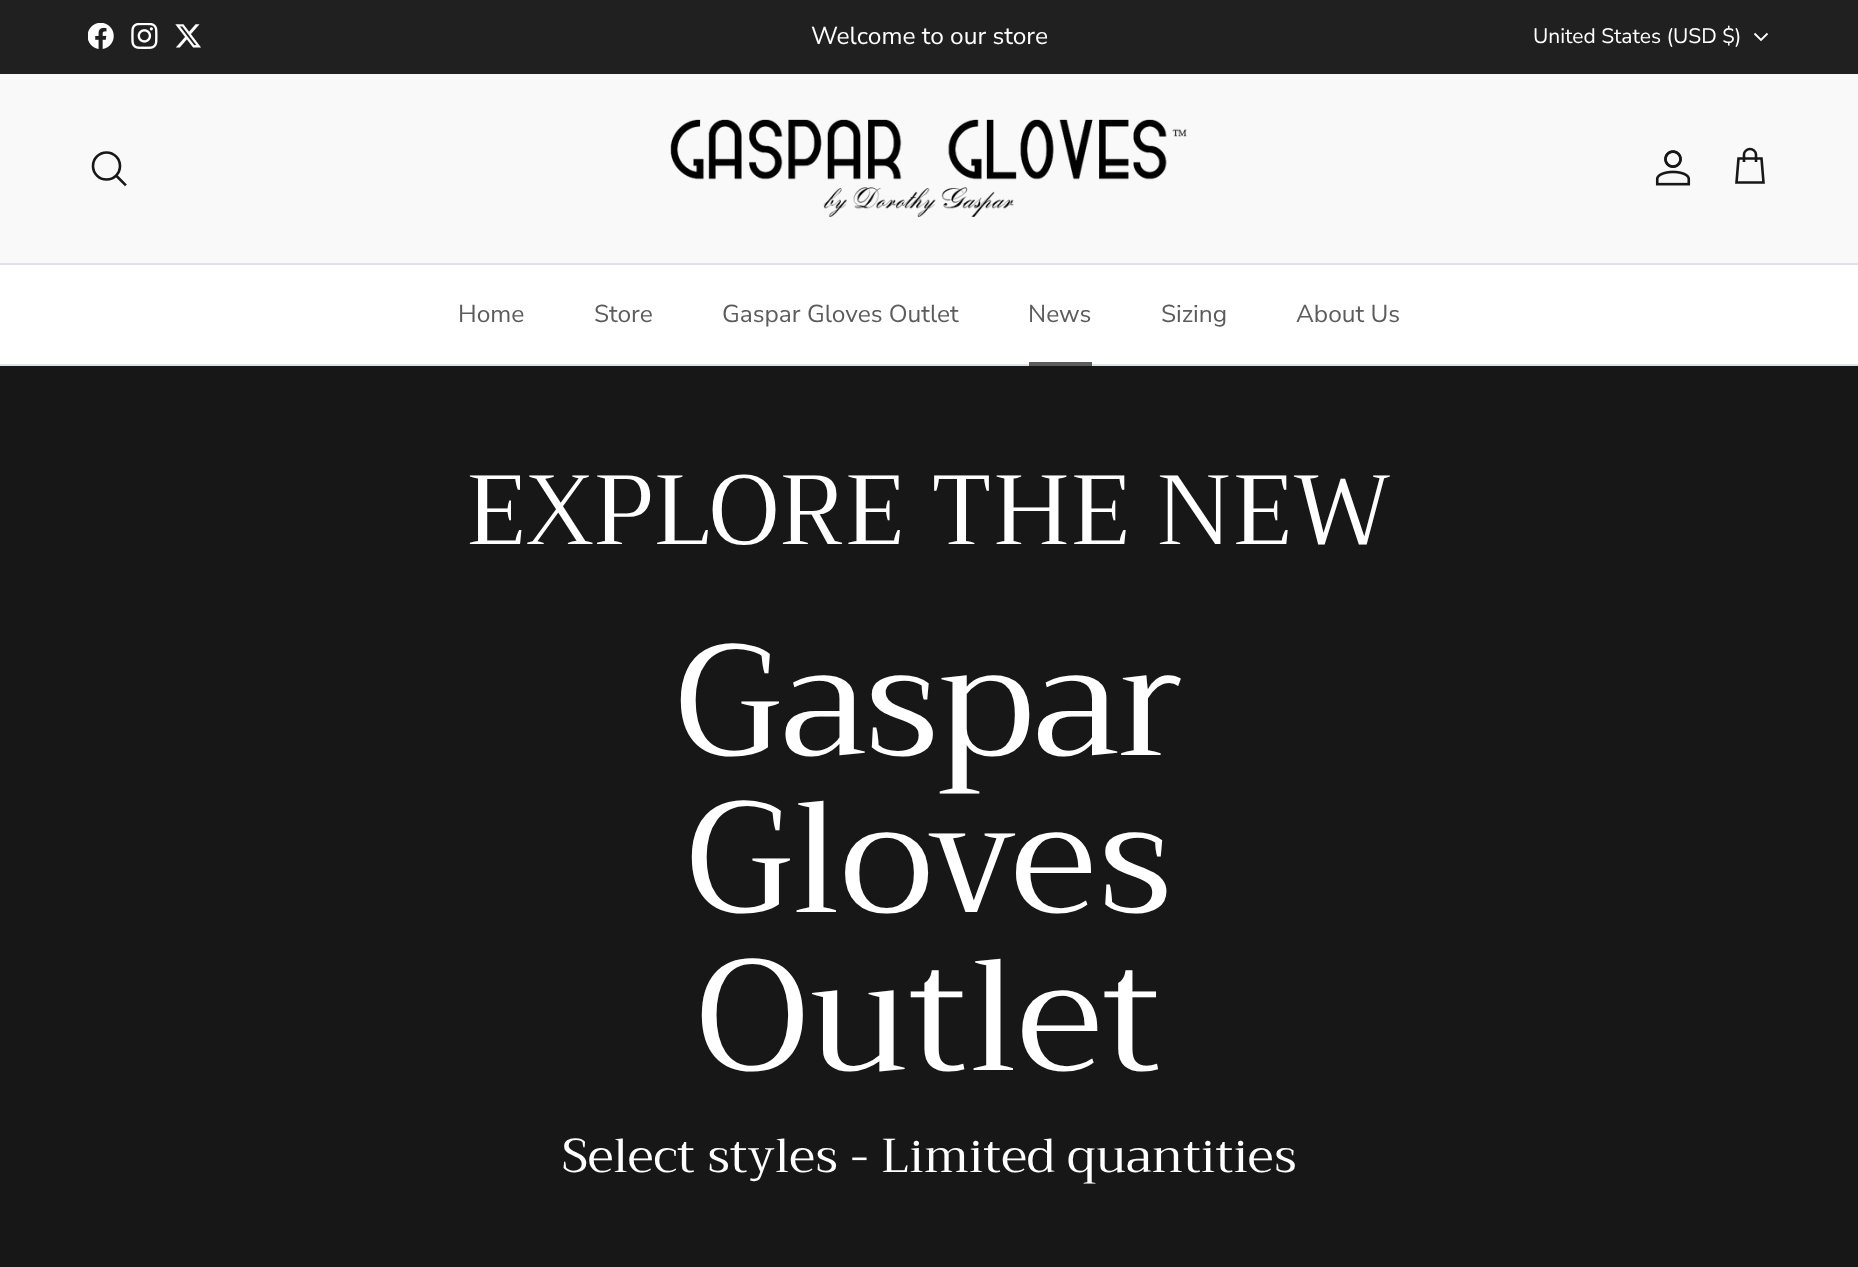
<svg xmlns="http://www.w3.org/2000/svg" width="1858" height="1267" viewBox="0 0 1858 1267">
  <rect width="100%" height="100%" fill="#f9f9f9"/>
  <path d="M0 0h1858v74H0z" fill="#202020"/>
  <image x="88" y="23" width="26" height="26" href="img/1.png"/>
  <image x="131" y="23" width="27" height="26" href="img/2.png"/>
  <image x="175" y="24" width="26" height="24" href="img/3.png"/>
  <path d="M1767.5 33.5L1761 40L1754.5 33.5" fill="none" stroke="#fff" stroke-width="1.8"/>
  <path d="M0 263h1858v2H0z" fill="#dfe3e8"/>
  <circle cx="106.5" cy="166" r="13.5" fill="none" stroke="#171717" stroke-width="2.6"/>
  <path d="M117 176.5L125 184.5" fill="none" stroke="#171717" stroke-width="2.6" stroke-linecap="square"/>
  <image x="670" y="119" width="517" height="98" href="img/4.png"/>
  <image x="1655" y="150" width="36" height="36" href="img/5.png"/>
  <path d="M1756 162V154.5C1756 151.5 1753 149 1750 149C1747 149 1744 151.5 1744 154.5V162M1738.5 158.5H1761.5L1763.5 182.5H1736.5Z" fill="none" stroke="#171717" stroke-width="2.6"/>
  <path d="M0 364h1858v2H0z" fill="#dfe3e8"/>
  <path d="M0 265h1858v99H0z" fill="#fff"/>
  <path d="M1029 362h63v4H1029z" fill="#5c5c5c"/>
  <path d="M0 366h1858v901H0z" fill="#171717"/>
  <text x="811" y="44" font-family="Nunito Sans" font-size="24.5" fill="#fff">Welcome to our store</text>
  <text x="1533" y="43" font-family="Nunito Sans" font-size="21" fill="#fff">United States (USD $)</text>
  <g font-family="Nunito Sans" font-size="24.5" fill="#5c5c5c">
    <text x="458" y="322">Home</text>
    <text x="594" y="322">Store</text>
    <text x="722" y="322">Gaspar Gloves Outlet</text>
    <text x="1028" y="322">News</text>
    <text x="1161" y="322">Sizing</text>
    <text x="1296" y="322">About Us</text>
  </g>
  <text x="466" y="544" font-family="Trirong" font-size="98" fill="#fff">EXPLORE THE NEW</text>
  <g font-family="Trirong" font-size="157.5" fill="#fff">
    <text x="675" y="755">Gaspar</text>
    <text x="686" y="912">Gloves</text>
    <text x="696" y="1070">Outlet</text>
  </g>
  <text x="562" y="1172" font-family="Trirong" font-size="47.5" fill="#fff">Select styles - Limited quantities</text>
</svg>
